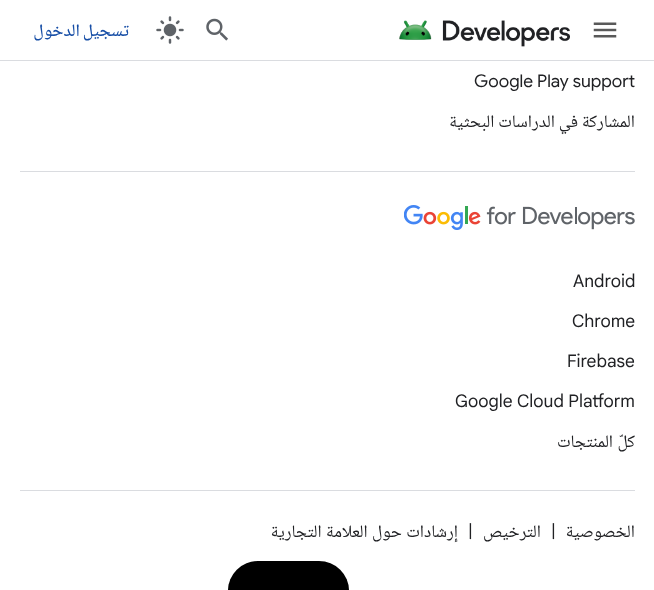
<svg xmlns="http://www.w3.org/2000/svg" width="654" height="590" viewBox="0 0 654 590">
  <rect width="100%" height="100%" fill="#fff"/>
  <path d="M0 60h654v1H0z" fill="#dadce0"/>
  <image x="593" y="22" width="24" height="16" href="img/1.png"/>
  <image x="399" y="20" width="171" height="27" href="img/2.png"/>
  <image x="206" y="18" width="22" height="23" href="img/3.png"/>
  <image x="156" y="16" width="28" height="28" href="img/4.png"/>
  <path d="M20 171h615v1H20z" fill="#dadce0"/>
  <path d="M20 490h615v1H20z" fill="#dadce0"/>
  <image x="404" y="205" width="231" height="25" href="img/5.png"/>
  <rect x="228" y="561" width="121" height="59" rx="30" fill="#000"/>
  <text x="129" y="36" word-spacing="-1" font-family="Noto Naskh Arabic" font-size="17.5" font-weight="500" letter-spacing="0.25" direction="rtl" fill="#174ea6">تسجيل الدخول</text>
  <text x="474" y="87" font-family="Google Sans" font-size="17.5" fill="#202124">Google Play support</text>
  <text x="635" y="127" font-family="Noto Naskh Arabic" font-size="17.5" direction="rtl" fill="#202124">المشاركة في الدراسات البحثية</text>
  <g font-family="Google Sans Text" font-size="17.5" fill="#202124">
    <text x="573" y="287">Android</text>
    <text x="572" y="327">Chrome</text>
    <text x="567" y="367">Firebase</text>
    <text x="455" y="407">Google Cloud Platform</text>
  </g>
  <g font-family="Noto Naskh Arabic" font-size="17.5" direction="rtl" fill="#202124">
    <text x="635" y="447" word-spacing="0.5">كلّ المنتجات</text>
    <text x="635" y="537">الخصوصية</text>
  </g>
  <text x="551" y="537" font-family="Google Sans Text" font-size="17.5" fill="#202124">|</text>
  <text x="541" y="537" font-family="Noto Naskh Arabic" font-size="17.5" direction="rtl" fill="#202124">الترخيص</text>
  <text x="468" y="537" font-family="Google Sans Text" font-size="17.5" fill="#202124">|</text>
  <text x="458" y="537" word-spacing="0.5" font-family="Noto Naskh Arabic" font-size="17.5" direction="rtl" fill="#202124">إرشادات حول العلامة التجارية</text>
</svg>
